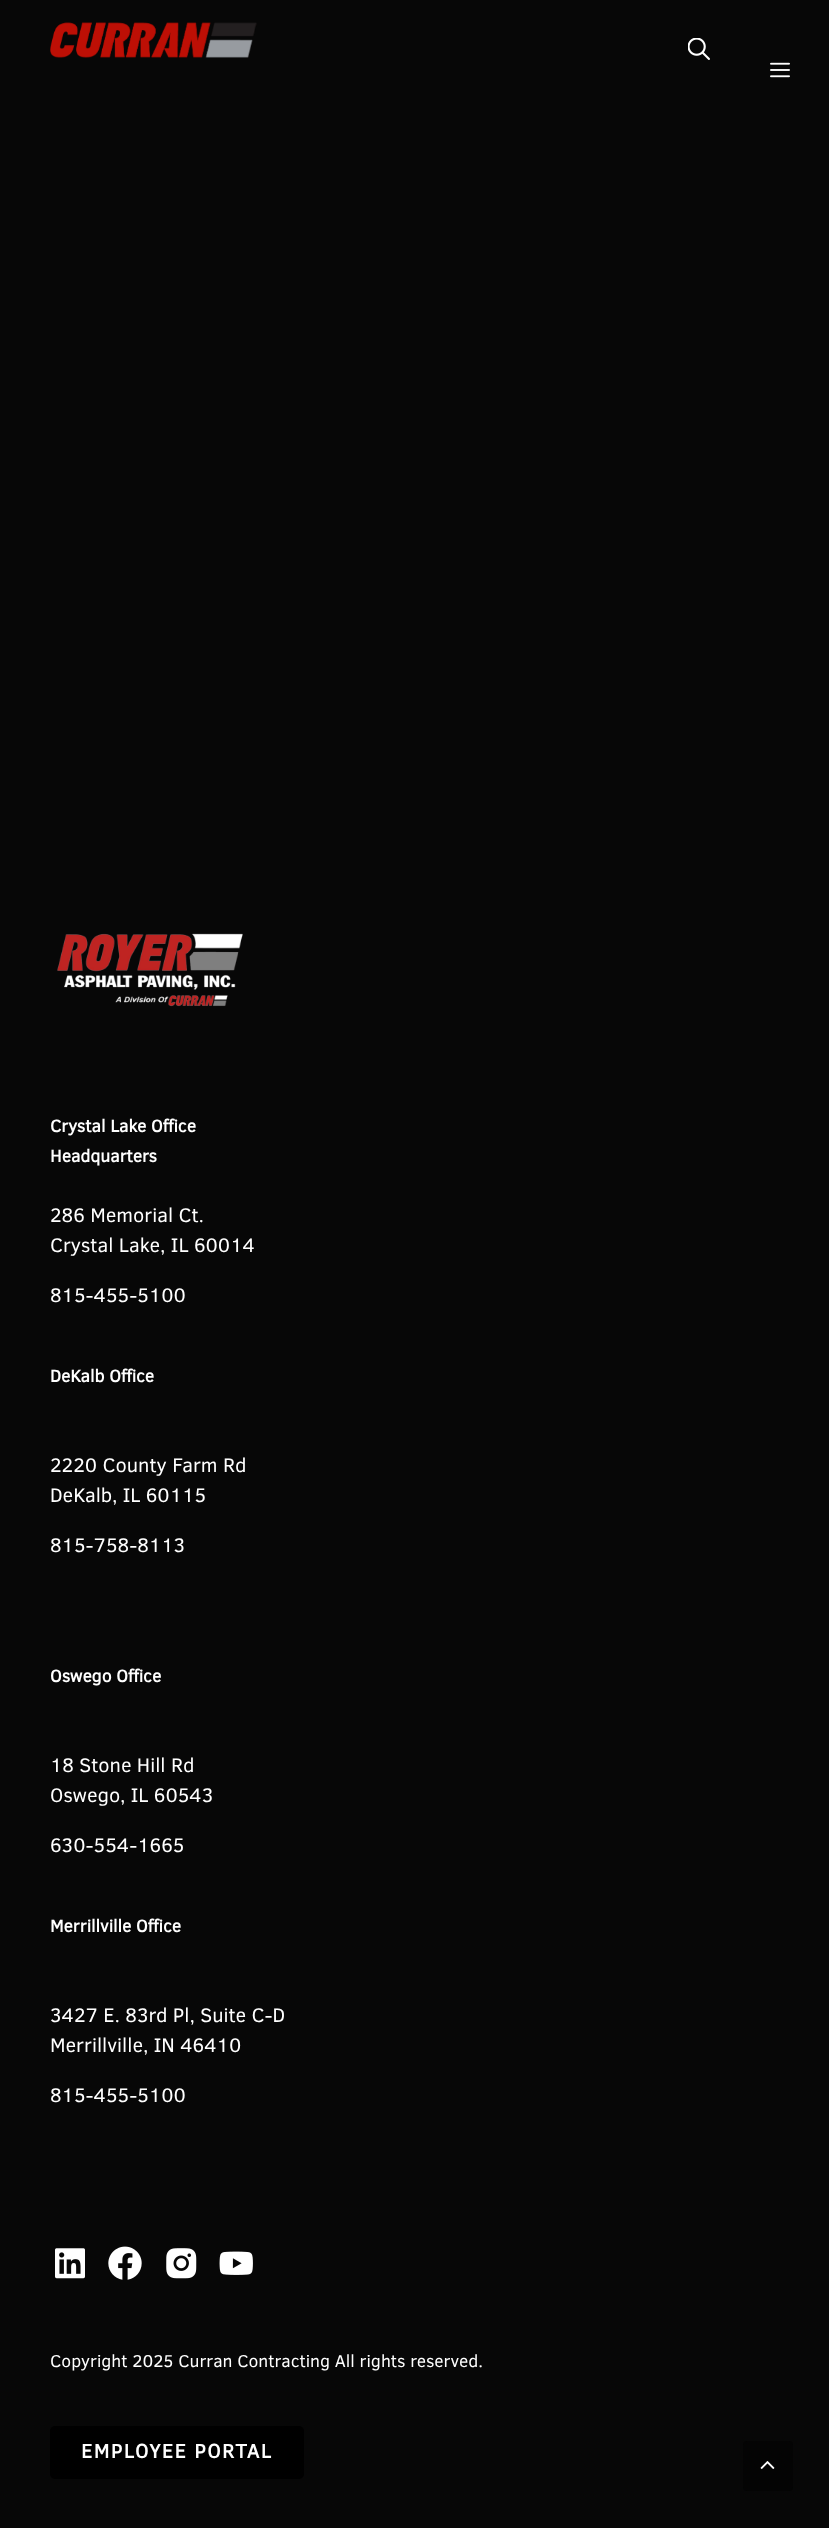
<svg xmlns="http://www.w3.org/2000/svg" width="829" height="2528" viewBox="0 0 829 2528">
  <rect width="100%" height="100%" fill="#070707"/>
  <image x="50" y="22" width="207" height="36" href="img/1.png"/>
  <image x="688" y="38" width="22" height="22" href="img/2.png"/>
  <image x="770" y="62" width="20" height="16" href="img/3.png"/>
  <image x="57" y="933" width="186" height="74" href="img/4.png"/>
  <image x="55" y="2248" width="30" height="31" href="img/5.png"/>
  <image x="108" y="2246" width="34" height="34" href="img/6.png"/>
  <image x="166" y="2248" width="31" height="31" href="img/7.png"/>
  <image x="219" y="2251" width="34" height="24" href="img/8.png"/>
  <rect x="50" y="2426" width="254" height="53" rx="5" fill="#000"/>
  <rect x="743" y="2441" width="50" height="50" rx="4" fill="#040404"/>
  <image x="760" y="2461" width="15" height="8" href="img/9.png"/>
  <g font-family="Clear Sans" font-size="17.5" font-weight="bold" fill="#fff">
    <text x="50" y="1132">Crystal Lake Office</text>
    <text x="50" y="1162">Headquarters</text>
  </g>
  <g font-family="Clear Sans" font-size="20" fill="#fff">
    <text x="50" y="1222">286 Memorial Ct.</text>
    <text x="50" y="1252">Crystal Lake, IL 60014</text>
    <text x="50" y="1302">815-455-5100</text>
  </g>
  <text x="50" y="1382" font-family="Clear Sans" font-size="17.5" font-weight="bold" fill="#fff">DeKalb Office</text>
  <g font-family="Clear Sans" font-size="20" fill="#fff">
    <text x="50" y="1472">2220 County Farm Rd</text>
    <text x="50" y="1502">DeKalb, IL 60115</text>
    <text x="50" y="1552">815-758-8113</text>
  </g>
  <text x="50" y="1682" font-family="Clear Sans" font-size="17.5" font-weight="bold" fill="#fff">Oswego Office</text>
  <g font-family="Clear Sans" font-size="20" fill="#fff">
    <text x="50" y="1772">18 Stone Hill Rd</text>
    <text x="50" y="1802">Oswego, IL 60543</text>
    <text x="50" y="1852">630-554-1665</text>
  </g>
  <text x="50" y="1932" font-family="Clear Sans" font-size="17.5" font-weight="bold" fill="#fff">Merrillville Office</text>
  <g font-family="Clear Sans" font-size="20" fill="#fff">
    <text x="50" y="2022">3427 E. 83rd Pl, Suite C-D</text>
    <text x="50" y="2052">Merrillville, IN 46410</text>
    <text x="50" y="2102">815-455-5100</text>
  </g>
  <text x="50" y="2367" font-family="Clear Sans" font-size="17.5" fill="#fff">Copyright 2025 Curran Contracting All rights reserved.</text>
  <text x="81" y="2458" font-family="Clear Sans" font-size="20" font-weight="bold" letter-spacing="1.5" fill="#fff">EMPLOYEE PORTAL</text>
</svg>
